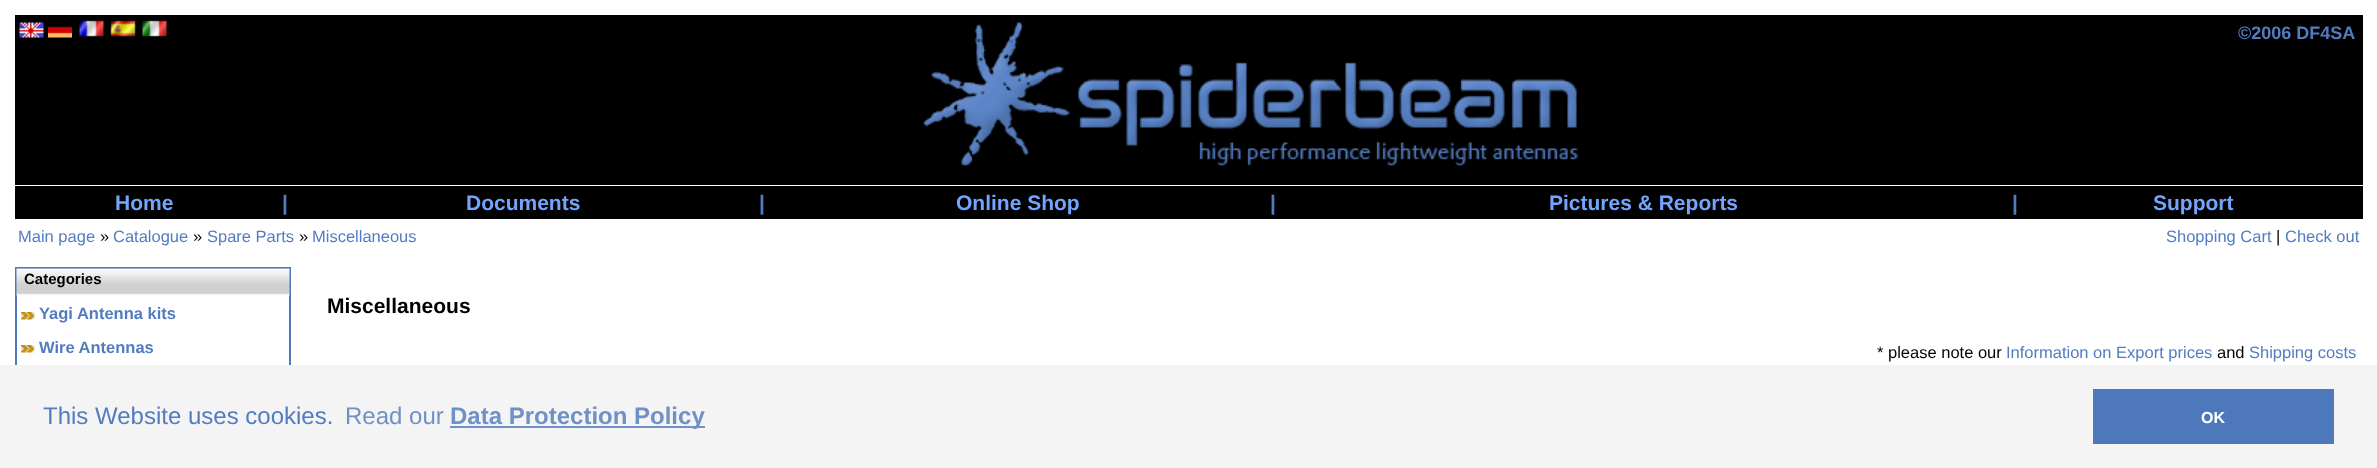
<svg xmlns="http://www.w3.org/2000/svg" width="2377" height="468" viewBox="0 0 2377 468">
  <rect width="100%" height="100%" fill="#fff"/>
  <path d="M15 15h2348v170H15z" fill="#000"/>
  <image x="19" y="22" width="25" height="16" href="img/1.png"/>
  <image x="48" y="26" width="24" height="12" href="img/2.png"/>
  <image x="79" y="20" width="25" height="17" href="img/3.png"/>
  <image x="110" y="20" width="26" height="17" href="img/4.png"/>
  <image x="142" y="20" width="25" height="17" href="img/5.png"/>
  <image x="923" y="22" width="656" height="144" href="img/6.png"/>
  <path d="M15 186h2348v33H15z" fill="#000"/>
  <path d="M16 268h274v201H16z" fill="none" stroke="#4e78bc" stroke-width="2"/>
  <image x="16" y="268" width="274" height="28" href="img/7.png"/>
  <image x="21" y="312" width="14" height="8" href="img/8.png"/>
  <image x="21" y="345" width="14" height="8" href="img/8.png"/>
  <path d="M0 365h2377v103H0z" fill="#f4f4f4"/>
  <path d="M450 426h255v2H450z" fill="#6f91c7"/>
  <path d="M2093 389h241v55H2093z" fill="#4e78bc"/>
  <text x="2238" y="39" font-family="Liberation Sans" font-size="18" font-weight="bold" fill="#527cc0">©2006 DF4SA</text>
  <text x="115" y="210" font-family="Liberation Sans" font-size="21" font-weight="bold" fill="#72a5ff">Home</text>
  <text x="282" y="210" font-family="Liberation Sans" font-size="21" font-weight="bold" fill="#527cc0">|</text>
  <text x="466" y="210" font-family="Liberation Sans" font-size="21" font-weight="bold" fill="#72a5ff">Documents</text>
  <text x="759" y="210" font-family="Liberation Sans" font-size="21" font-weight="bold" fill="#527cc0">|</text>
  <text x="956" y="210" font-family="Liberation Sans" font-size="21" font-weight="bold" fill="#72a5ff">Online Shop</text>
  <text x="1270" y="210" font-family="Liberation Sans" font-size="21" font-weight="bold" fill="#527cc0">|</text>
  <text x="1549" y="210" font-family="Liberation Sans" font-size="21" font-weight="bold" fill="#72a5ff">Pictures &amp; Reports</text>
  <text x="2012" y="210" font-family="Liberation Sans" font-size="21" font-weight="bold" fill="#527cc0">|</text>
  <text x="2153" y="210" font-family="Liberation Sans" font-size="21" font-weight="bold" fill="#72a5ff">Support</text>
  <text x="18" y="242" font-family="Liberation Sans" font-size="16.5" fill="#527cc0">Main page</text>
  <text x="100" y="242" font-family="Liberation Sans" font-size="16.5" fill="#000">»</text>
  <text x="113" y="242" font-family="Liberation Sans" font-size="16.5" fill="#527cc0">Catalogue</text>
  <text x="193" y="242" font-family="Liberation Sans" font-size="16.5" fill="#000">»</text>
  <text x="207" y="242" font-family="Liberation Sans" font-size="16.5" fill="#527cc0">Spare Parts</text>
  <text x="299" y="242" font-family="Liberation Sans" font-size="16.5" fill="#000">»</text>
  <g font-family="Liberation Sans" font-size="16.5" fill="#527cc0">
    <text x="312" y="242">Miscellaneous</text>
    <text x="2166" y="242">Shopping Cart</text>
  </g>
  <text x="2276" y="242" font-family="Liberation Sans" font-size="16.5" fill="#000">|</text>
  <text x="2285" y="242" font-family="Liberation Sans" font-size="16.5" fill="#527cc0">Check out</text>
  <text x="24" y="284" font-family="Liberation Sans" font-size="15" font-weight="bold" fill="#000">Categories</text>
  <g font-family="Liberation Sans" font-size="16.5" font-weight="bold" fill="#527cc0">
    <text x="39" y="319">Yagi Antenna kits</text>
    <text x="39" y="353">Wire Antennas</text>
  </g>
  <text x="327" y="313" font-family="Liberation Sans" font-size="21" font-weight="bold" fill="#000">Miscellaneous</text>
  <text x="1877" y="358" font-family="Liberation Sans" font-size="16.5" fill="#000">* please note our</text>
  <text x="2006" y="358" font-family="Liberation Sans" font-size="16.5" fill="#527cc0">Information on Export prices</text>
  <text x="2217" y="358" font-family="Liberation Sans" font-size="16.5" fill="#000">and</text>
  <text x="2249" y="358" font-family="Liberation Sans" font-size="16.5" fill="#527cc0">Shipping costs</text>
  <text x="43" y="424" font-family="Liberation Sans" font-size="24" fill="#527cc0">This Website uses cookies.</text>
  <text x="345" y="424" font-family="Liberation Sans" font-size="24" fill="#6f91c7">Read our</text>
  <text x="450" y="424" font-family="Liberation Sans" font-size="24" font-weight="bold" fill="#6f91c7">Data Protection Policy</text>
  <text x="2201" y="423" font-family="Liberation Sans" font-size="16" font-weight="bold" fill="#fff">OK</text>
</svg>
